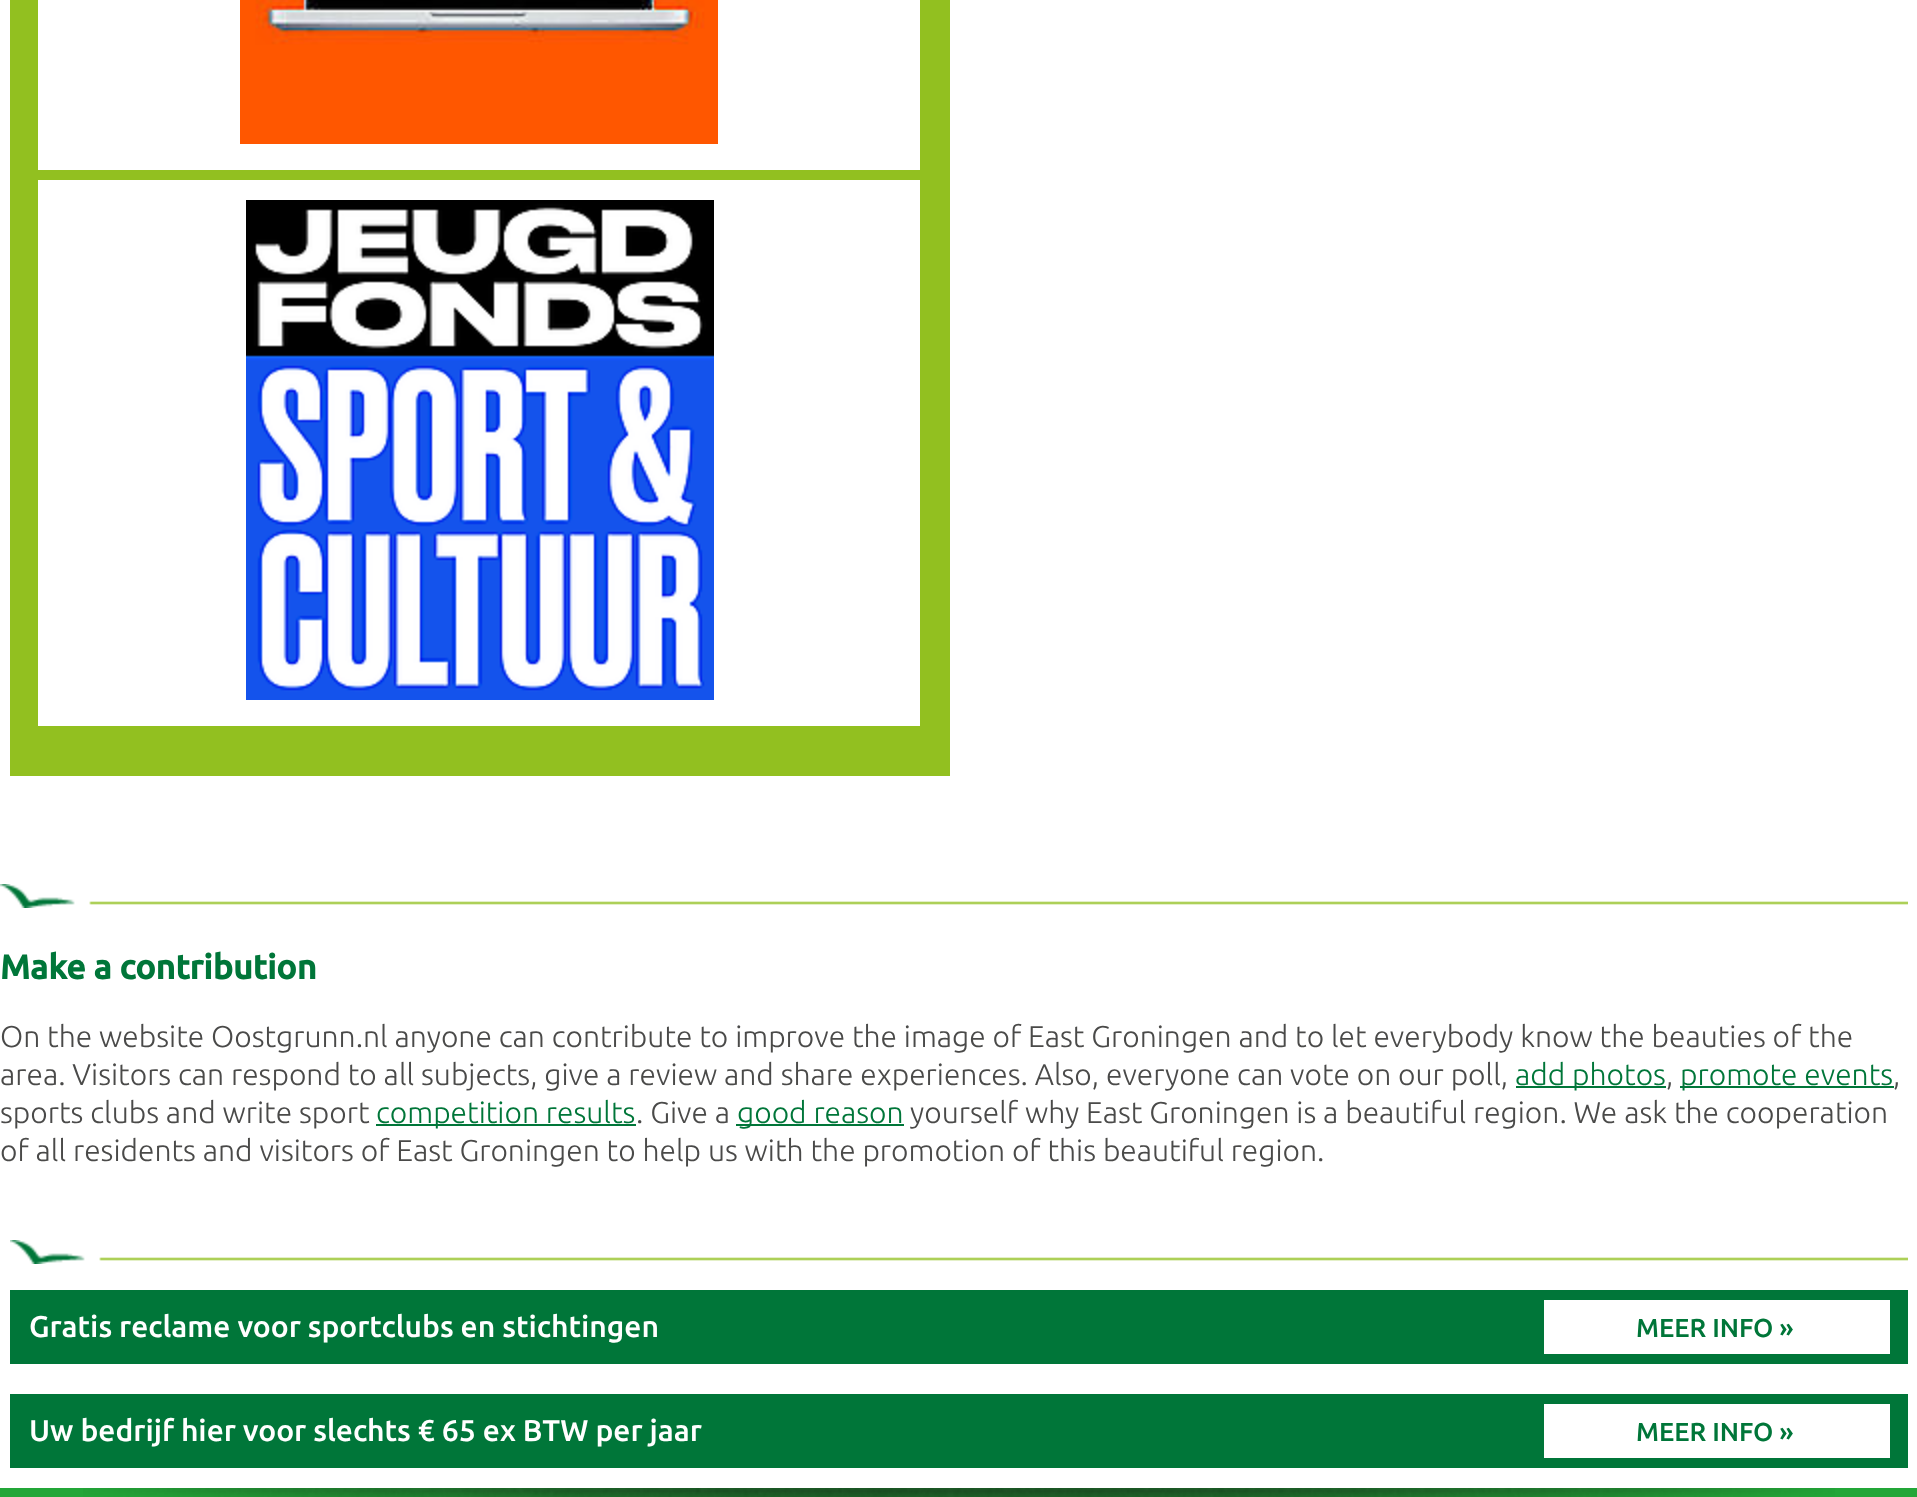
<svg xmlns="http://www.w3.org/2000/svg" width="1917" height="1497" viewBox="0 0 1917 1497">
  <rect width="100%" height="100%" fill="#fff"/>
  <path d="M10 0h940v776H10z" fill="#92c020"/>
  <path d="M38 0h882v170H38z" fill="#fff"/>
  <image x="240" y="0" width="478" height="144" href="img/1.png"/>
  <path d="M38 180h882v546H38z" fill="#fff"/>
  <image x="246" y="200" width="468" height="500" href="img/2.png"/>
  <image x="0" y="884" width="1908" height="24" href="img/3.png"/>
  <path d="M1516 1086h150v2H1516z" fill="#007639"/>
  <path d="M1680 1086h214v2H1680z" fill="#007639"/>
  <path d="M376 1124h260v2H376z" fill="#007639"/>
  <path d="M736 1124h168v2H736z" fill="#007639"/>
  <image x="10" y="1240" width="1898" height="24" href="img/4.png"/>
  <path d="M10 1290h1898v74H10z" fill="#007639"/>
  <path d="M1544 1300h346v54H1544z" fill="#fff"/>
  <path d="M10 1394h1898v74H10z" fill="#007639"/>
  <path d="M1544 1404h346v54H1544z" fill="#fff"/>
  <path d="M0 1488h1917v9H0z" fill="#23a638"/>
  <image x="83" y="1488" width="1752" height="9" href="img/5.png"/>
  <text x="0" y="979" font-family="Ubuntu" font-size="34" font-weight="bold" fill="#007639">Make a contribution</text>
  <g font-family="Ubuntu" font-size="30" font-weight="300" fill="#4a4a49">
    <text x="0" y="1047">On the website Oostgrunn.nl anyone can contribute to improve the image of East Groningen and to let everybody know the beauties of the</text>
    <text x="0" y="1085">area. Visitors can respond to all subjects, give a review and share experiences. Also, everyone can vote on our poll,</text>
  </g>
  <text x="1515" y="1085" font-family="Ubuntu" font-size="30" font-weight="300" fill="#007639">add photos</text>
  <text x="1666" y="1085" font-family="Ubuntu" font-size="30" font-weight="300" fill="#4a4a49">,</text>
  <text x="1680" y="1085" font-family="Ubuntu" font-size="30" font-weight="300" fill="#007639">promote events</text>
  <g font-family="Ubuntu" font-size="30" font-weight="300" fill="#4a4a49">
    <text x="1893" y="1085">,</text>
    <text x="0" y="1123">sports clubs and write sport</text>
  </g>
  <text x="376" y="1123" font-family="Ubuntu" font-size="30" font-weight="300" fill="#007639">competition results</text>
  <text x="636" y="1123" font-family="Ubuntu" font-size="30" font-weight="300" fill="#4a4a49">. Give a</text>
  <text x="737" y="1123" font-family="Ubuntu" font-size="30" font-weight="300" fill="#007639">good reason</text>
  <g font-family="Ubuntu" font-size="30" font-weight="300" fill="#4a4a49">
    <text x="910" y="1123">yourself why East Groningen is a beautiful region. We ask the cooperation</text>
    <text x="0" y="1161">of all residents and visitors of East Groningen to help us with the promotion of this beautiful region.</text>
  </g>
  <text x="29" y="1337" font-family="Ubuntu" font-size="30" font-weight="500" fill="#fff">Gratis reclame voor sportclubs en stichtingen</text>
  <text x="1636" y="1337" font-family="Ubuntu" font-size="26" font-weight="500" fill="#007639">MEER INFO »</text>
  <text x="29" y="1441" font-family="Ubuntu" font-size="30" font-weight="500" fill="#fff">Uw bedrijf hier voor slechts € 65 ex BTW per jaar</text>
  <text x="1636" y="1441" font-family="Ubuntu" font-size="26" font-weight="500" fill="#007639">MEER INFO »</text>
</svg>
